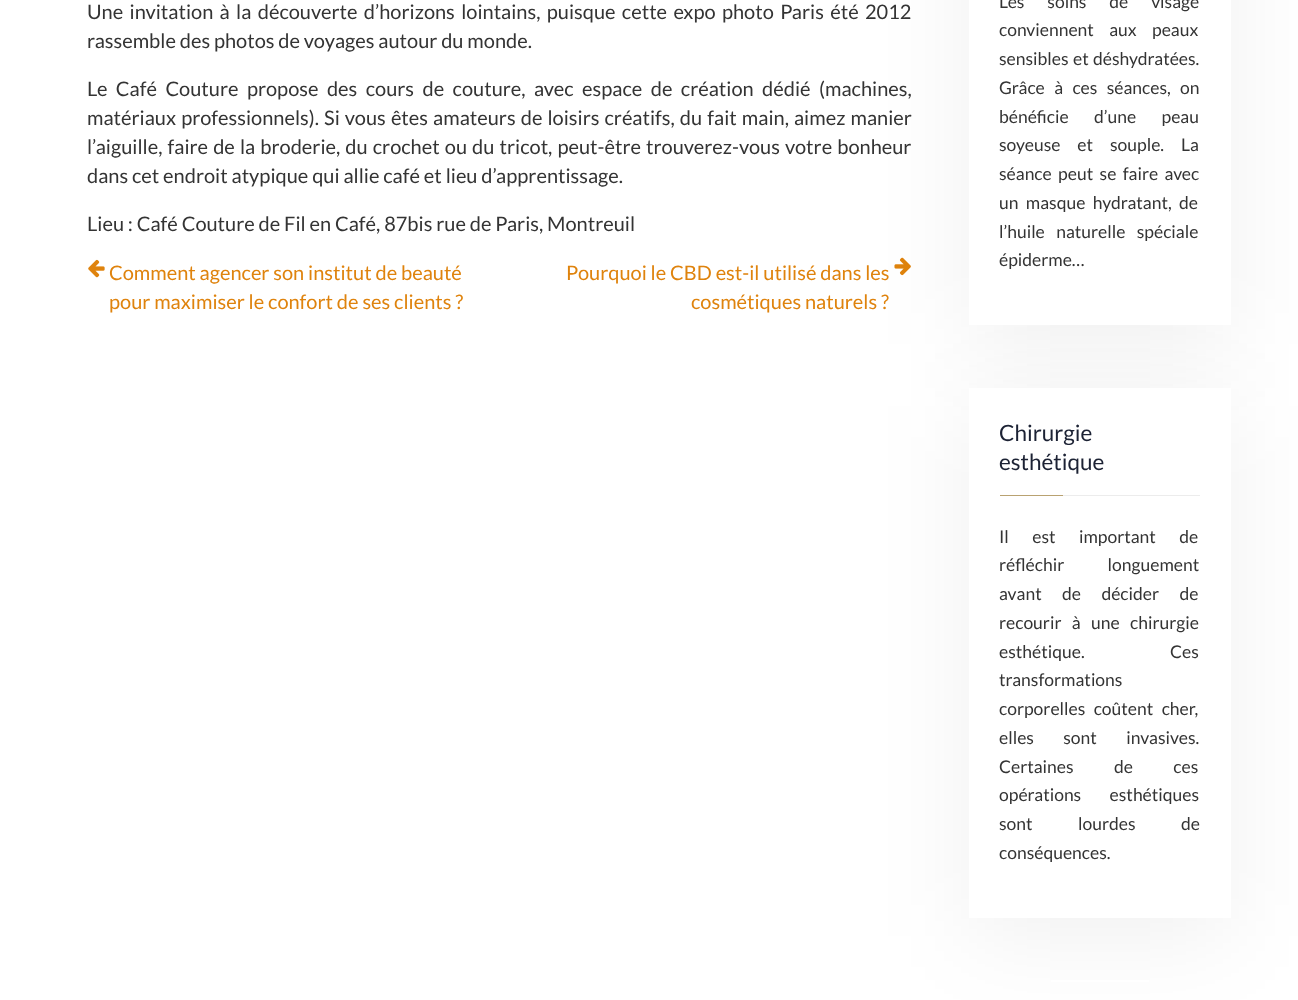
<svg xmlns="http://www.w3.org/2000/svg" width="1298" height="1000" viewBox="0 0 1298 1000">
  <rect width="100%" height="100%" fill="#fff"/>
  <image x="88" y="259" width="17" height="19" href="img/1.png"/>
  <image x="894" y="257" width="17" height="19" href="img/2.png"/>
  <path d="M969 -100h262v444H969z" fill="#0000000f" filter="blur(47.5px)"/>
  <path d="M969 0h262v325H969z" fill="#fff"/>
  <path d="M969 406h262v530H969z" fill="#0000000f" filter="blur(47.5px)"/>
  <path d="M969 388h262v530H969z" fill="#fff"/>
  <path d="M1000 495h63v1H1000z" fill="#b9a271"/>
  <path d="M1063 495h137v1H1063z" fill="#ececec"/>
  <path d="M1051 980h98v2H1051z" fill="#fff"/>
  <g font-family="Lato" font-size="20" fill="#343434">
    <text x="87" y="19" word-spacing="2.5">Une invitation à la découverte d’horizons lointains, puisque cette expo photo Paris été 2012</text>
    <text x="87" y="48">rassemble des photos de voyages autour du monde.</text>
    <text x="87" y="96" word-spacing="4.6">Le Café Couture propose des cours de couture, avec espace de création dédié (machines,</text>
    <text x="87" y="125" word-spacing="1.25">matériaux professionnels). Si vous êtes amateurs de loisirs créatifs, du fait main, aimez manier</text>
    <text x="87" y="154" word-spacing="1.25">l’aiguille, faire de la broderie, du crochet ou du tricot, peut-être trouverez-vous votre bonheur</text>
    <text x="87" y="183">dans cet endroit atypique qui allie café et lieu d’apprentissage.</text>
    <text x="87" y="231">Lieu : Café Couture de Fil en Café, 87bis rue de Paris, Montreuil</text>
  </g>
  <g font-family="Lato" font-size="20" fill="#df830d">
    <text x="109" y="280">Comment agencer son institut de beauté</text>
    <text x="109" y="309">pour maximiser le confort de ses clients ?</text>
    <text x="566" y="280">Pourquoi le CBD est-il utilisé dans les</text>
    <text x="691" y="309">cosmétiques naturels ?</text>
  </g>
  <g font-family="Lato" font-size="17.5" fill="#343434">
    <text x="999" y="8" word-spacing="19.5">Les soins de visage</text>
    <text x="999" y="36" word-spacing="12">conviennent aux peaux</text>
    <text x="999" y="65" word-spacing="1">sensibles et déshydratées.</text>
    <text x="999" y="94" word-spacing="6">Grâce à ces séances, on</text>
    <text x="999" y="123" word-spacing="22">bénéficie d’une peau</text>
    <text x="999" y="151" word-spacing="13.5">soyeuse et souple. La</text>
    <text x="999" y="180" word-spacing="3">séance peut se faire avec</text>
    <text x="999" y="209" word-spacing="4">un masque hydratant, de</text>
    <text x="999" y="238" word-spacing="8">l’huile naturelle spéciale</text>
    <text x="999" y="266">épiderme…</text>
  </g>
  <g font-family="Lato" font-size="22.5" fill="#1c2234">
    <text x="999" y="441">Chirurgie</text>
    <text x="999" y="470">esthétique</text>
  </g>
  <g font-family="Lato" font-size="17.5" fill="#343434">
    <text x="999" y="543" word-spacing="20">Il est important de</text>
    <text x="999" y="571" word-spacing="40">réfléchir longuement</text>
    <text x="999" y="600" word-spacing="17">avant de décider de</text>
    <text x="999" y="629" word-spacing="7">recourir à une chirurgie</text>
    <text x="999" y="658" word-spacing="82">esthétique. Ces</text>
    <text x="999" y="686">transformations</text>
    <text x="999" y="715" word-spacing="5">corporelles coûtent cher,</text>
    <text x="999" y="744" word-spacing="26">elles sont invasives.</text>
    <text x="999" y="773" word-spacing="37">Certaines de ces</text>
    <text x="999" y="801" word-spacing="25">opérations esthétiques</text>
    <text x="999" y="830" word-spacing="42">sont lourdes de</text>
    <text x="999" y="859">conséquences.</text>
  </g>
</svg>
